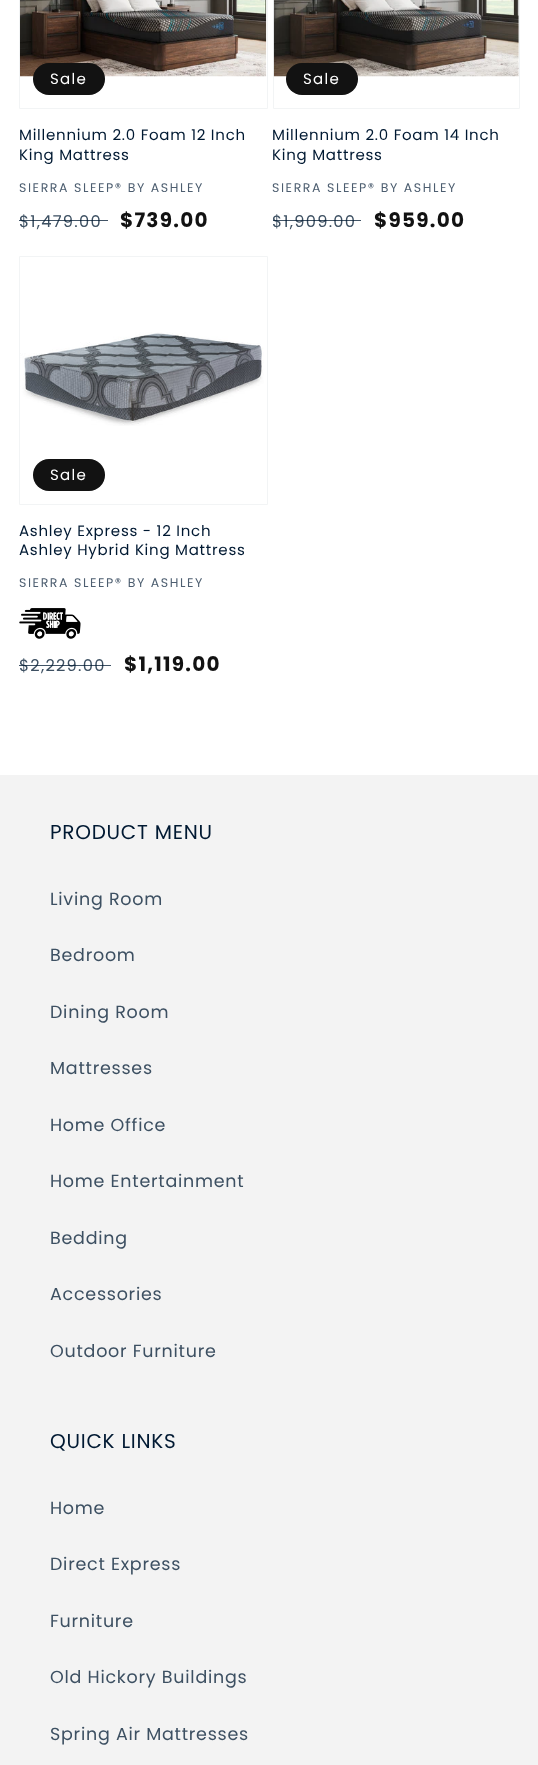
<svg xmlns="http://www.w3.org/2000/svg" width="538" height="1765" viewBox="0 0 538 1765">
  <rect width="100%" height="100%" fill="#fff"/>
  <path d="M19.5 -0.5h248v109H19.5z" fill="none" stroke="#f2f4f5"/>
  <image x="20" y="0" width="247" height="77" href="img/1.png"/>
  <rect x="33" y="63" width="72" height="32" rx="16" fill="#121212"/>
  <rect x="33.5" y="63.5" width="71" height="31" rx="15.5" fill="none" stroke="#1212121a"/>
  <path d="M273.5 -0.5h246v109H273.5z" fill="none" stroke="#f2f4f5"/>
  <image x="273" y="0" width="246" height="77" href="img/2.png"/>
  <rect x="286" y="63" width="72" height="32" rx="16" fill="#121212"/>
  <rect x="286.5" y="63.5" width="71" height="31" rx="15.5" fill="none" stroke="#1212121a"/>
  <path d="M19.5 256.5h248v248H19.5z" fill="none" stroke="#f2f4f5"/>
  <image x="20" y="332" width="244" height="94" href="img/3.png"/>
  <rect x="33" y="459" width="72" height="32" rx="16" fill="#121212"/>
  <rect x="33.5" y="459.5" width="71" height="31" rx="15.5" fill="none" stroke="#1212121a"/>
  <image x="19" y="608" width="62" height="31" href="img/4.png"/>
  <path d="M0 775h538v990H0z" fill="#f3f3f3"/>
  <text x="50" y="84" font-family="Poppins" font-size="15" letter-spacing="1.25" fill="#fff">Sale</text>
  <g font-family="Poppins" font-size="15" letter-spacing="0.75" fill="#001932">
    <text x="19" y="140">Millennium 2.0 Foam 12 Inch</text>
    <text x="19" y="160">King Mattress</text>
  </g>
  <text x="19" y="192" font-family="Poppins" font-size="12.5" letter-spacing="1.6" fill="#4d5e70">SIERRA SLEEP® BY ASHLEY</text>
  <text x="19" y="227" font-family="Poppins" font-size="16.25" letter-spacing="1.25" fill="#3d5062">$1,479.00</text>
  <path d="M19 220h89v1H19z" fill="#001932bf"/>
  <text x="120" y="227" font-family="Poppins" font-size="20" font-weight="bold" letter-spacing="1.25" fill="#121212">$739.00</text>
  <text x="303" y="84" font-family="Poppins" font-size="15" letter-spacing="1.25" fill="#fff">Sale</text>
  <g font-family="Poppins" font-size="15" letter-spacing="0.75" fill="#001932">
    <text x="272" y="140">Millennium 2.0 Foam 14 Inch</text>
    <text x="272" y="160">King Mattress</text>
  </g>
  <text x="272" y="192" font-family="Poppins" font-size="12.5" letter-spacing="1.6" fill="#4d5e70">SIERRA SLEEP® BY ASHLEY</text>
  <text x="272" y="227" font-family="Poppins" font-size="16.25" letter-spacing="1.25" fill="#3d5062">$1,909.00</text>
  <path d="M273 220h88v1H273z" fill="#001932bf"/>
  <text x="374" y="227" font-family="Poppins" font-size="20" font-weight="bold" letter-spacing="1.25" fill="#121212">$959.00</text>
  <text x="50" y="480" font-family="Poppins" font-size="15" letter-spacing="1.25" fill="#fff">Sale</text>
  <g font-family="Poppins" font-size="15" letter-spacing="0.75" fill="#001932">
    <text x="19" y="536">Ashley Express - 12 Inch</text>
    <text x="19" y="555">Ashley Hybrid King Mattress</text>
  </g>
  <text x="19" y="587" font-family="Poppins" font-size="12.5" letter-spacing="1.6" fill="#4d5e70">SIERRA SLEEP® BY ASHLEY</text>
  <text x="19" y="671" font-family="Poppins" font-size="16.25" letter-spacing="1.25" fill="#3d5062">$2,229.00</text>
  <path d="M19 665h92v1H19z" fill="#001932bf"/>
  <text x="124" y="671" font-family="Poppins" font-size="20" font-weight="bold" letter-spacing="1.25" fill="#121212">$1,119.00</text>
  <text x="50" y="839" font-family="Poppins" font-size="20" letter-spacing="0.75" fill="#001932">PRODUCT MENU</text>
  <g font-family="Poppins" font-size="17.5" letter-spacing="0.75" fill="#3d5062">
    <text x="50" y="905">Living Room</text>
    <text x="50" y="961">Bedroom</text>
    <text x="50" y="1018">Dining Room</text>
    <text x="50" y="1074">Mattresses</text>
    <text x="50" y="1131">Home Office</text>
    <text x="50" y="1187">Home Entertainment</text>
    <text x="50" y="1244">Bedding</text>
    <text x="50" y="1300">Accessories</text>
    <text x="50" y="1357">Outdoor Furniture</text>
  </g>
  <text x="50" y="1448" font-family="Poppins" font-size="20" letter-spacing="0.75" fill="#001932">QUICK LINKS</text>
  <g font-family="Poppins" font-size="17.5" letter-spacing="0.75" fill="#3d5062">
    <text x="50" y="1514">Home</text>
    <text x="50" y="1570">Direct Express</text>
    <text x="50" y="1627">Furniture</text>
    <text x="50" y="1683">Old Hickory Buildings</text>
    <text x="50" y="1740">Spring Air Mattresses</text>
  </g>
</svg>
